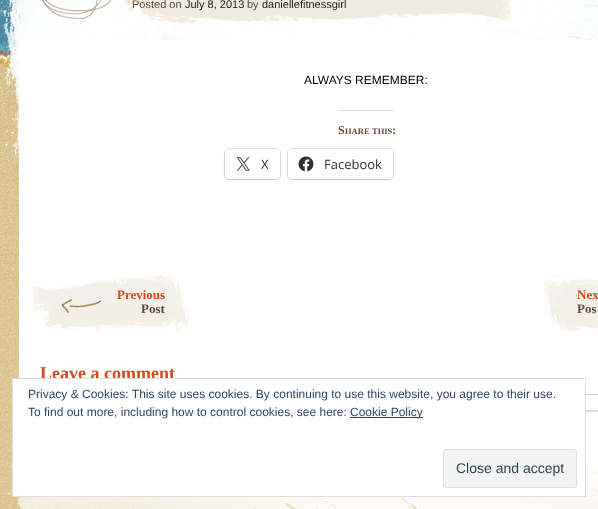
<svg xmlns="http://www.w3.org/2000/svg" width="598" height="509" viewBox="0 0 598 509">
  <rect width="100%" height="100%" fill="#fff"/>
  <image x="0" y="465" width="598" height="44" href="img/1.png"/>
  <image x="0" y="0" width="598" height="465" href="img/2.png"/>
  <image x="0" y="465" width="598" height="44" href="img/10.png"/>
  <image x="0" y="0" width="598" height="466" href="img/3.png"/>
  <image x="42" y="0" width="70" height="19" href="img/4.png"/>
  <image x="124" y="0" width="388" height="25" href="img/5.png"/>
  <path d="M338 110h56v1H338z" fill="#dcdcde"/>
  <rect x="224.5" y="148.5" width="56" height="31" rx="4.5" fill="none" stroke="#e0e0e0"/>
  <rect x="225" y="150" width="55" height="30" rx="4" fill="#0000001f" filter="blur(1px)"/>
  <rect x="225" y="149" width="55" height="30" rx="4" fill="#fff"/>
  <image x="236" y="157" width="14" height="14" href="img/6.png"/>
  <rect x="287.5" y="148.5" width="106" height="31" rx="4.5" fill="none" stroke="#e0e0e0"/>
  <rect x="288" y="150" width="105" height="30" rx="4" fill="#0000001f" filter="blur(1px)"/>
  <rect x="288" y="149" width="105" height="30" rx="4" fill="#fff"/>
  <image x="298" y="156" width="16" height="16" href="img/7.png"/>
  <image x="32" y="274" width="157" height="57" href="img/8.png"/>
  <image x="543" y="275" width="55" height="57" href="img/9.png"/>
  <path d="M586 394h12v1H586z" fill="#dacdab"/>
  <path d="M586 410h12v2H586z" fill="#dcdcde"/>
  <text x="132" y="8" font-family="Liberation Sans" font-size="11" fill="#644a3d">Posted on</text>
  <text x="185" y="8" font-family="Liberation Sans" font-size="11" fill="#261a11">July 8, 2013</text>
  <text x="247" y="8" font-family="Liberation Sans" font-size="11" fill="#644a3d">by</text>
  <text x="262" y="8" font-family="Liberation Sans" font-size="11" fill="#261a11">daniellefitnessgirl</text>
  <text x="304" y="84" font-family="Liberation Sans" font-size="12" fill="#000">ALWAYS REMEMBER:</text>
  <text x="338" y="134" font-family="Liberation Serif" font-size="12" font-weight="bold" fill="#644a3d">S</text>
  <g font-family="Liberation Serif" font-size="8.5" font-weight="bold" fill="#644a3d">
    <text x="345" y="134">HARE</text>
    <text x="372" y="134">THIS</text>
  </g>
  <text x="392" y="134" font-family="Liberation Serif" font-size="12" font-weight="bold" fill="#644a3d">:</text>
  <g font-family="Open Sans" font-size="13" fill="#2c3338">
    <text x="261" y="169">X</text>
    <text x="324" y="169">Facebook</text>
  </g>
  <text x="117" y="299" font-family="Liberation Serif" font-size="13" font-weight="bold" fill="#d8471d">Previous</text>
  <text x="141" y="313" font-family="Liberation Serif" font-size="13" font-weight="bold" fill="#644a3d">Post</text>
  <text x="577" y="299" font-family="Liberation Serif" font-size="13" font-weight="bold" fill="#d8471d">Nex</text>
  <text x="577" y="313" font-family="Liberation Serif" font-size="13" font-weight="bold" fill="#644a3d">Pos</text>
  <text x="40" y="379" font-family="Liberation Serif" font-size="18" font-weight="bold" fill="#cc4d22">Leave a comment</text>
  <path d="M12.5 378.5h573v118H12.5z" fill="#fff" stroke="#dedede"/>
  <g font-family="Liberation Sans" font-size="12" fill="#2e4467">
    <text x="28" y="398">Privacy &amp; Cookies: This site uses cookies. By continuing to use this website, you agree to their use.</text>
    <text x="28" y="416">To find out more, including how to control cookies, see here:</text>
  </g>
  <path d="M350 417h73v1H350z" fill="#2e4467"/>
  <text x="350" y="416" font-family="Liberation Sans" font-size="12" fill="#2e4467">Cookie Policy</text>
  <rect x="443.5" y="449.5" width="133" height="38" rx="2.5" fill="#f3f3f3" stroke="#dedede"/>
  <text x="456" y="473" font-family="Liberation Sans" font-size="14" fill="#2e4453">Close and accept</text>
</svg>
